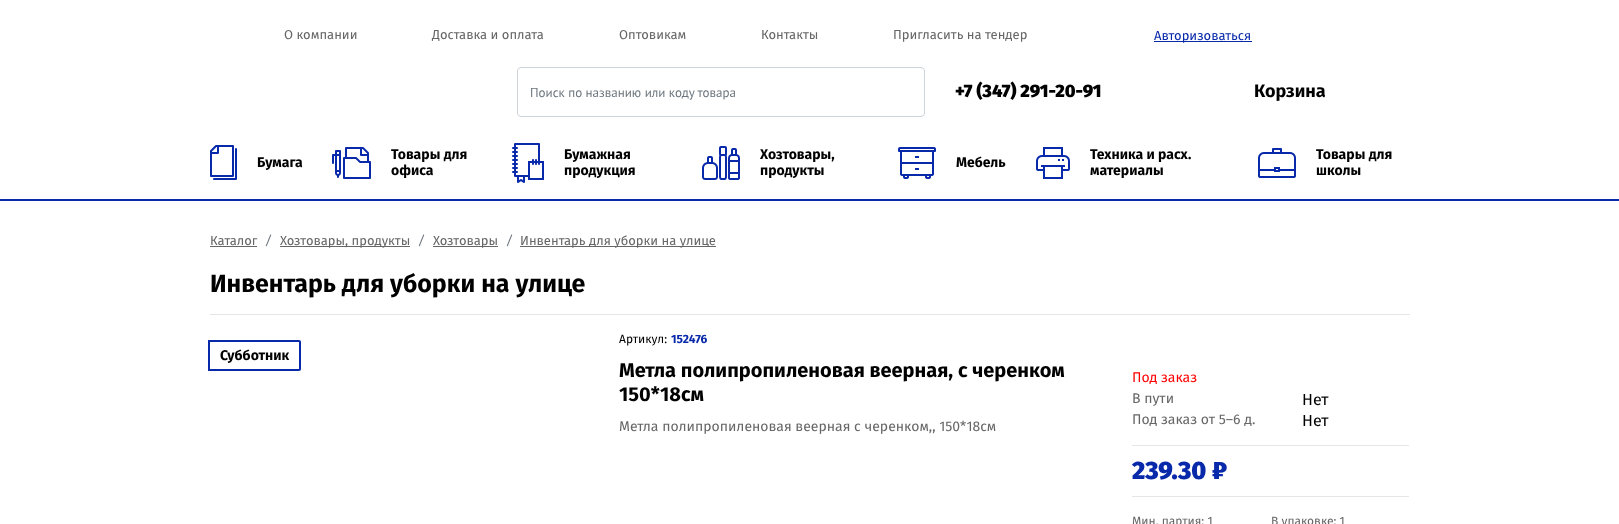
<svg xmlns="http://www.w3.org/2000/svg" width="1619" height="524" viewBox="0 0 1619 524">
  <rect width="100%" height="100%" fill="#fff"/>
  <path d="M0 199h1619v2H0z" fill="#0929ab"/>
  <path d="M1154 41h98v1H1154z" fill="#0929ab"/>
  <rect x="517.5" y="67.5" width="407" height="49" rx="3.5" fill="none" stroke="#ced4da"/>
  <path d="M236 149V179H214M216 146H233V176H211V151ZM218 146V153H211" fill="none" stroke="#0929ab" stroke-width="2" stroke-linecap="round" stroke-linejoin="round"/>
  <image x="332" y="147" width="39" height="32" href="img/1.png"/>
  <image x="512" y="143" width="32" height="40" href="img/2.png"/>
  <image x="702" y="146" width="38" height="34" href="img/3.png"/>
  <image x="898" y="147" width="38" height="32" href="img/4.png"/>
  <image x="1036" y="147" width="34" height="32" href="img/5.png"/>
  <image x="1258" y="148" width="38" height="30" href="img/6.png"/>
  <path d="M210 246h47v1H210z" fill="#666"/>
  <path d="M280 246h130v1H280z" fill="#666"/>
  <path d="M433 246h65v1H433z" fill="#666"/>
  <path d="M520 246h196v1H520z" fill="#666"/>
  <path d="M210 314h1200v1H210z" fill="#e6e6e6"/>
  <path d="M209 341H299C299.5 341 300 341.5 300 342V369C300 369.5 299.5 370 299 370H209Z" fill="none" stroke="#0929ab" stroke-width="2"/>
  <path d="M1132 445h277v1H1132z" fill="#e6e6e6"/>
  <path d="M1132 496h277v1H1132z" fill="#e6e6e6"/>
  <g font-family="Fira Sans" font-size="13" fill="#666">
    <text x="284" y="39">О компании</text>
    <text x="432" y="39">Доставка и оплата</text>
    <text x="619" y="39">Оптовикам</text>
    <text x="761" y="39">Контакты</text>
    <text x="893" y="39">Пригласить на тендер</text>
  </g>
  <text x="1154" y="40" font-family="Fira Sans" font-size="13" fill="#0929ab">Авторизоваться</text>
  <text x="530" y="97" font-family="PT Sans" font-size="13" fill="#6c757d">Поиск по названию или коду товара</text>
  <text x="955" y="97" font-family="Fira Sans" font-size="18" font-weight="900" fill="#000">+7 (347) 291-20-91</text>
  <text x="1254" y="97" font-family="Fira Sans" font-size="18" font-weight="bold" fill="#000">Корзина</text>
  <g font-family="Fira Sans" font-size="14" font-weight="bold" fill="#000">
    <text x="257" y="167">Бумага</text>
    <text x="391" y="159">Товары для</text>
    <text x="391" y="175">офиса</text>
    <text x="564" y="159">Бумажная</text>
    <text x="564" y="175">продукция</text>
    <text x="760" y="159">Хозтовары,</text>
    <text x="760" y="175">продукты</text>
    <text x="956" y="167">Мебель</text>
    <text x="1090" y="159">Техника и расх.</text>
    <text x="1090" y="175">материалы</text>
    <text x="1316" y="159">Товары для</text>
    <text x="1316" y="175">школы</text>
  </g>
  <text x="210" y="245" font-family="Fira Sans" font-size="13" fill="#666">Каталог</text>
  <text x="265" y="245" font-family="Fira Sans" font-size="13" font-style="italic" fill="#6c757d">/</text>
  <text x="280" y="245" font-family="Fira Sans" font-size="13" fill="#666">Хозтовары, продукты</text>
  <text x="418" y="245" font-family="Fira Sans" font-size="13" font-style="italic" fill="#6c757d">/</text>
  <text x="433" y="245" font-family="Fira Sans" font-size="13" fill="#666">Хозтовары</text>
  <text x="506" y="245" font-family="Fira Sans" font-size="13" font-style="italic" fill="#6c757d">/</text>
  <text x="520" y="245" font-family="Fira Sans" font-size="13" fill="#666">Инвентарь для уборки на улице</text>
  <text x="210" y="292" font-family="Fira Sans" font-size="25" font-weight="bold" fill="#000">Инвентарь для уборки на улице</text>
  <text x="220" y="360" font-family="Fira Sans" font-size="14" font-weight="bold" fill="#000">Субботник</text>
  <text x="619" y="343" font-family="Fira Sans" font-size="12" fill="#000">Артикул:</text>
  <text x="671" y="343" font-family="Fira Sans" font-size="12" font-weight="bold" fill="#0929ab">152476</text>
  <g font-family="Fira Sans" font-size="20" font-weight="bold" fill="#000">
    <text x="619" y="377">Метла полипропиленовая веерная, с черенком</text>
    <text x="619" y="401">150*18см</text>
  </g>
  <text x="619" y="431" font-family="Fira Sans" font-size="14" fill="#666">Метла полипропиленовая веерная с черенком,, 150*18см</text>
  <text x="1132" y="382" font-family="Fira Sans" font-size="14" fill="#f00">Под заказ</text>
  <text x="1132" y="403" font-family="Fira Sans" font-size="14" fill="#666">В пути</text>
  <text x="1302" y="405" font-family="Fira Sans" font-size="16" fill="#000">Нет</text>
  <text x="1132" y="424" font-family="Fira Sans" font-size="14" fill="#666">Под заказ от 5–6 д.</text>
  <text x="1302" y="426" font-family="Fira Sans" font-size="16" fill="#000">Нет</text>
  <text x="1132" y="479" font-family="Fira Sans" font-size="25" font-weight="900" fill="#0929ab">239.30 ₽</text>
  <g font-family="Fira Sans" font-size="12" fill="#666">
    <text x="1132" y="525">Мин. партия: 1</text>
    <text x="1271" y="525">В упаковке: 1</text>
  </g>
</svg>
